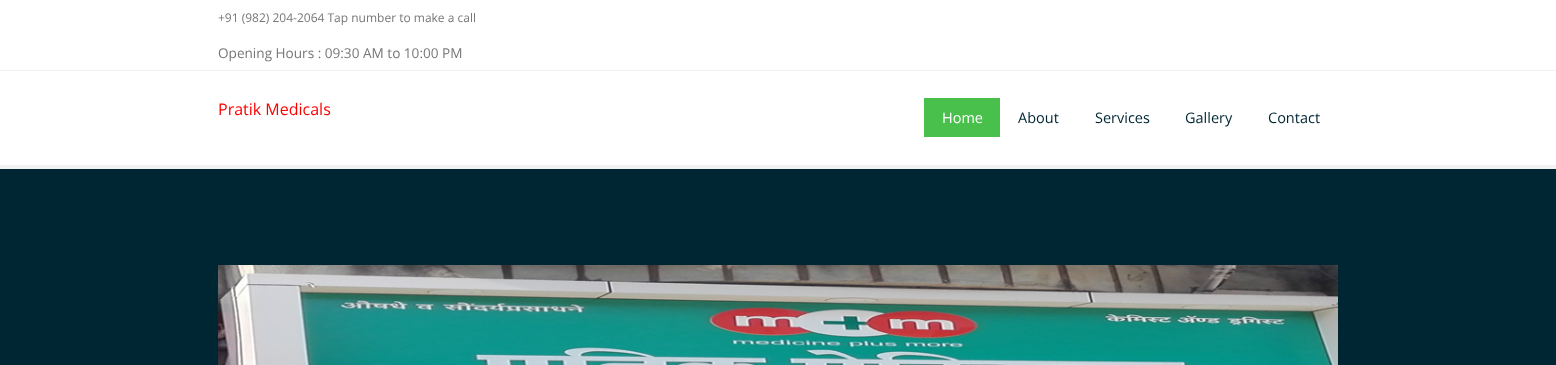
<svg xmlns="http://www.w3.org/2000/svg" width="1556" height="365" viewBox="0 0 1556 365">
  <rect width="100%" height="100%" fill="#fff"/>
  <path d="M0 70h1556v1H0z" fill="#f2f2f2"/>
  <path d="M0 165h1556v4H0z" fill="#f2f2f2"/>
  <path d="M924 98h76v39H924z" fill="#49bf4c"/>
  <path d="M0 169h1556v196H0z" fill="#002633"/>
  <image x="218" y="265" width="1120" height="100" href="img/1.png"/>
  <text x="218" y="22" font-family="Open Sans" font-size="12" fill="#777">+91 (982) 204-2064 Tap number to make a call</text>
  <text x="218" y="58" font-family="Open Sans" font-size="13.6" fill="#777">Opening Hours : 09:30 AM to 10:00 PM</text>
  <text x="218" y="115" font-family="Open Sans" font-size="16" fill="#f00">Pratik Medicals</text>
  <text x="942" y="123" font-family="Open Sans" font-size="14.5" fill="#fff">Home</text>
  <g font-family="Open Sans" font-size="14.5" fill="#002633">
    <text x="1018" y="123">About</text>
    <text x="1095" y="123">Services</text>
    <text x="1185" y="123">Gallery</text>
    <text x="1268" y="123">Contact</text>
  </g>
</svg>
